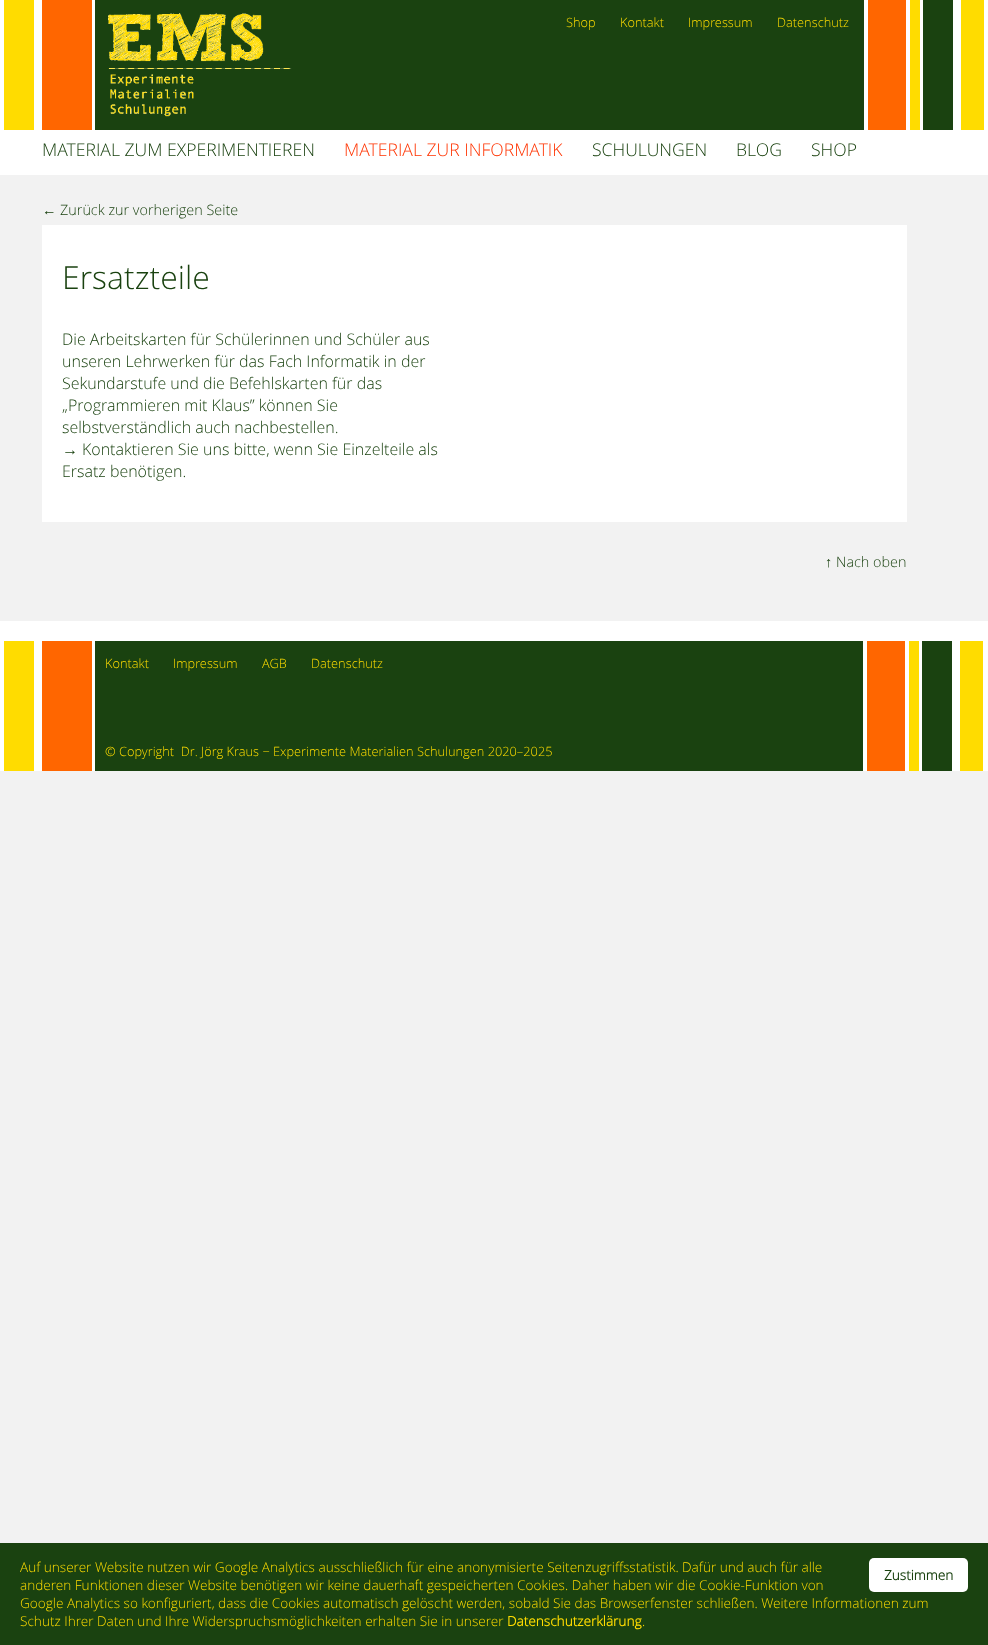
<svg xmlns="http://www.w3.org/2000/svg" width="988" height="1645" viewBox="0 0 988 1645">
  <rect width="100%" height="100%" fill="#f2f2f2"/>
  <path d="M0 0h988v175H0z" fill="#fff"/>
  <path d="M4 0h30v130H4z" fill="#ffdc00"/>
  <path d="M42 0h50v130H42z" fill="#f60"/>
  <path d="M95 0h769v130H95z" fill="#1a4210"/>
  <image x="108" y="13" width="184" height="104" href="img/1.png"/>
  <path d="M868 0h38v130H868z" fill="#f60"/>
  <path d="M910 0h10v130H910z" fill="#ffdc00"/>
  <path d="M923 0h30v130H923z" fill="#1a4210"/>
  <path d="M961 0h23v130H961z" fill="#ffdc00"/>
  <path d="M42 225h865v297H42z" fill="#fff"/>
  <path d="M0 621h988v150H0z" fill="#fff"/>
  <path d="M4 641h30v130H4z" fill="#ffdc00"/>
  <path d="M42 641h50v130H42z" fill="#f60"/>
  <path d="M95 641h768v130H95z" fill="#1a4210"/>
  <path d="M867 641h38v130H867z" fill="#f60"/>
  <path d="M909 641h10v130H909z" fill="#ffdc00"/>
  <path d="M922 641h30v130H922z" fill="#1a4210"/>
  <path d="M960 641h23v130H960z" fill="#ffdc00"/>
  <path d="M0 1543h988v102H0z" fill="#1a4210"/>
  <rect x="869" y="1558" width="99" height="34" rx="5" fill="#fff"/>
  <g font-family="Open Sans" font-size="12.8" font-weight="300" fill="#ffdc00">
    <text x="566" y="27">Shop</text>
    <text x="620" y="27">Kontakt</text>
    <text x="688" y="27">Impressum</text>
    <text x="777" y="27">Datenschutz</text>
  </g>
  <text x="42" y="156" font-family="Open Sans" font-size="17.6" font-weight="300" fill="#1a4210">MATERIAL ZUM EXPERIMENTIEREN</text>
  <text x="344" y="156" font-family="Open Sans" font-size="17.6" font-weight="300" fill="#f30">MATERIAL ZUR INFORMATIK</text>
  <g font-family="Open Sans" font-size="17.6" font-weight="300" fill="#1a4210">
    <text x="592" y="156">SCHULUNGEN</text>
    <text x="736" y="156">BLOG</text>
    <text x="811" y="156">SHOP</text>
  </g>
  <text x="42" y="215" font-family="Liberation Serif" font-size="14.4" fill="#1a4210">←</text>
  <text x="60" y="215" font-family="Open Sans" font-size="14.4" font-weight="300" fill="#1a4210">Zurück zur vorherigen Seite</text>
  <text x="62" y="289" font-family="Open Sans" font-size="32" font-weight="300" fill="#1a4210">Ersatzteile</text>
  <g font-family="Open Sans" font-size="16" font-weight="300" fill="#1a4210">
    <text x="62" y="345">Die Arbeitskarten für Schülerinnen und Schüler aus</text>
    <text x="62" y="367">unseren Lehrwerken für das Fach Informatik in der</text>
    <text x="62" y="389">Sekundarstufe und die Befehlskarten für das</text>
    <text x="62" y="411">„Programmieren mit Klaus” können Sie</text>
    <text x="62" y="433">selbstverständlich auch nachbestellen.</text>
  </g>
  <text x="62" y="455" font-family="Liberation Serif" font-size="16" fill="#1a4210">→</text>
  <g font-family="Open Sans" font-size="16" font-weight="300" fill="#1a4210">
    <text x="82" y="455">Kontaktieren Sie uns bitte, wenn Sie Einzelteile als</text>
    <text x="62" y="477">Ersatz benötigen.</text>
  </g>
  <text x="825" y="567" font-family="Liberation Serif" font-size="14.4" fill="#1a4210">↑</text>
  <text x="836" y="567" font-family="Open Sans" font-size="14.4" font-weight="300" fill="#1a4210">Nach oben</text>
  <g font-family="Open Sans" font-size="12.8" font-weight="300" fill="#ffdc00">
    <text x="105" y="668">Kontakt</text>
    <text x="173" y="668">Impressum</text>
    <text x="262" y="668">AGB</text>
    <text x="311" y="668">Datenschutz</text>
    <text x="105" y="756" xml:space="preserve">© Copyright  Dr. Jörg Kraus − Experimente Materialien Schulungen 2020–2025</text>
  </g>
  <g font-family="Open Sans" font-size="13.6" font-weight="300" fill="#ffdc00">
    <text x="20" y="1572">Auf unserer Website nutzen wir Google Analytics ausschließlich für eine anonymisierte Seitenzugriffsstatistik.</text>
    <text x="682" y="1572">Dafür und auch für alle</text>
    <text x="20" y="1590">anderen Funktionen dieser Website benötigen wir keine dauerhaft gespeicherten Cookies. Daher haben wir die Cookie-Funktion von</text>
    <text x="20" y="1608">Google Analytics so konfiguriert, dass die Cookies automatisch gelöscht werden, sobald Sie das Browserfenster schließen. Weitere Informationen zum</text>
    <text x="20" y="1626">Schutz Ihrer Daten und Ihre Widerspruchsmöglichkeiten erhalten Sie in unserer</text>
  </g>
  <text x="507" y="1626" font-family="Open Sans" font-size="13.6" font-weight="bold" fill="#ffdc00">Datenschutzerklärung</text>
  <text x="642" y="1626" font-family="Open Sans" font-size="13.6" font-weight="300" fill="#ffdc00">.</text>
  <text x="884" y="1580" font-family="Open Sans" font-size="13.6" font-weight="bold" fill="#1a4210">Zustimmen</text>
</svg>
